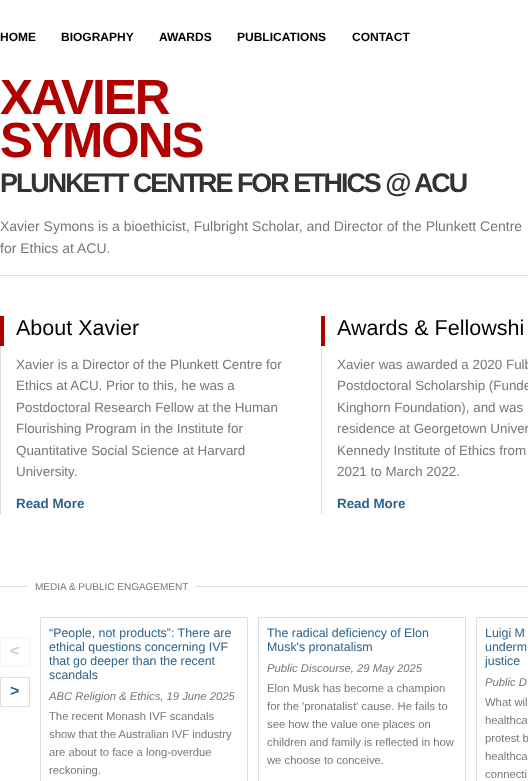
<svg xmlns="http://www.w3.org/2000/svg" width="528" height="781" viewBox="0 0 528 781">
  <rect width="100%" height="100%" fill="#fff"/>
  <path d="M0 275h528v1H0z" fill="#ddd"/>
  <path d="M0 316h4v30H0z" fill="#b00000"/>
  <path d="M0 346h1v168H0z" fill="#ddd"/>
  <path d="M321 316h4v30H321z" fill="#b00000"/>
  <path d="M321 346h1v168H321z" fill="#ddd"/>
  <path d="M0 586h528v1H0z" fill="#ddd"/>
  <path d="M27 586h168v1H27z" fill="#fff"/>
  <path d="M0.5 637.5h29v29H0.5z" fill="none" stroke="#f5f5f5"/>
  <path d="M0.5 677.5h29v29H0.5z" fill="none" stroke="#ddd"/>
  <path d="M40.5 617.5h207v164H40.5z" fill="none" stroke="#ddd"/>
  <path d="M258.5 617.5h207v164H258.5z" fill="none" stroke="#ddd"/>
  <path d="M476.5 617.5h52v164H476.5z" fill="none" stroke="#ddd"/>
  <g font-family="Liberation Sans" font-size="12" font-weight="bold" fill="#000">
    <text x="0" y="41">HOME</text>
    <text x="61" y="41">BIOGRAPHY</text>
    <text x="159" y="41">AWARDS</text>
    <text x="237" y="41">PUBLICATIONS</text>
    <text x="352" y="41">CONTACT</text>
  </g>
  <g font-family="Liberation Sans" font-size="49.5" font-weight="bold" letter-spacing="-2" fill="#b00000">
    <text x="0" y="114">XAVIER</text>
    <text x="0" y="157">SYMONS</text>
  </g>
  <text x="0" y="192" font-family="Liberation Sans" font-size="26.9" font-weight="bold" letter-spacing="-2" fill="#333">PLUNKETT CENTRE FOR ETHICS @ ACU</text>
  <g font-family="Liberation Sans" font-size="14" fill="#777">
    <text x="0" y="231">Xavier Symons is a bioethicist, Fulbright Scholar, and Director of the Plunkett Centre</text>
    <text x="0" y="253">for Ethics at ACU.</text>
  </g>
  <text x="16" y="335" font-family="Liberation Sans" font-size="21.5" fill="#000">About Xavier</text>
  <g font-family="Liberation Sans" font-size="13.4" fill="#777">
    <text x="16" y="369">Xavier is a Director of the Plunkett Centre for</text>
    <text x="16" y="390">Ethics at ACU. Prior to this, he was a</text>
    <text x="16" y="412">Postdoctoral Research Fellow at the Human</text>
    <text x="16" y="433">Flourishing Program in the Institute for</text>
    <text x="16" y="455">Quantitative Social Science at Harvard</text>
    <text x="16" y="476">University.</text>
  </g>
  <text x="16" y="508" font-family="Liberation Sans" font-size="13.4" font-weight="bold" fill="#2d648a">Read More</text>
  <text x="337" y="335" font-family="Liberation Sans" font-size="21.5" fill="#000">Awards &amp; Fellowshi</text>
  <g font-family="Liberation Sans" font-size="13.4" fill="#777">
    <text x="337" y="369">Xavier was awarded a 2020 Fulb</text>
    <text x="337" y="390">Postdoctoral Scholarship (Funde</text>
    <text x="337" y="412">Kinghorn Foundation), and was</text>
    <text x="337" y="433">residence at Georgetown Univer</text>
    <text x="337" y="455">Kennedy Institute of Ethics from</text>
    <text x="337" y="476">2021 to March 2022.</text>
  </g>
  <text x="337" y="508" font-family="Liberation Sans" font-size="13.4" font-weight="bold" fill="#2d648a">Read More</text>
  <text x="35" y="590" font-family="Liberation Sans" font-size="10" fill="#777">MEDIA &amp; PUBLIC ENGAGEMENT</text>
  <text x="10" y="656" font-family="Liberation Sans" font-size="16" font-weight="bold" fill="#c0d1dc">&lt;</text>
  <text x="10" y="696" font-family="Liberation Sans" font-size="16" font-weight="bold" fill="#2d648a">&gt;</text>
  <g font-family="Liberation Sans" font-size="12.4" fill="#2d648a">
    <text x="49" y="637">“People, not products”: There are</text>
    <text x="49" y="651">ethical questions concerning IVF</text>
    <text x="49" y="665">that go deeper than the recent</text>
    <text x="49" y="679">scandals</text>
  </g>
  <text x="49" y="700" font-family="Liberation Sans" font-size="11.25" font-style="italic" fill="#777">ABC Religion &amp; Ethics, 19 June 2025</text>
  <g font-family="Liberation Sans" font-size="11.25" fill="#777">
    <text x="49" y="720">The recent Monash IVF scandals</text>
    <text x="49" y="738">show that the Australian IVF industry</text>
    <text x="49" y="756">are about to face a long-overdue</text>
    <text x="49" y="774">reckoning.</text>
  </g>
  <g font-family="Liberation Sans" font-size="12.4" fill="#2d648a">
    <text x="267" y="637">The radical deficiency of Elon</text>
    <text x="267" y="651">Musk's pronatalism</text>
  </g>
  <text x="267" y="672" font-family="Liberation Sans" font-size="11.25" font-style="italic" fill="#777">Public Discourse, 29 May 2025</text>
  <g font-family="Liberation Sans" font-size="11.25" fill="#777">
    <text x="267" y="692">Elon Musk has become a champion</text>
    <text x="267" y="710">for the 'pronatalist' cause. He fails to</text>
    <text x="267" y="728">see how the value one places on</text>
    <text x="267" y="746">children and family is reflected in how</text>
    <text x="267" y="764">we choose to conceive.</text>
  </g>
  <g font-family="Liberation Sans" font-size="12.4" fill="#2d648a">
    <text x="485" y="637">Luigi M</text>
    <text x="485" y="651">underm</text>
    <text x="485" y="665">justice</text>
  </g>
  <text x="485" y="686" font-family="Liberation Sans" font-size="11.25" font-style="italic" fill="#777">Public D</text>
  <g font-family="Liberation Sans" font-size="11.25" fill="#777">
    <text x="485" y="706">What wil</text>
    <text x="485" y="724">healthca</text>
    <text x="485" y="742">protest b</text>
    <text x="485" y="760">healthca</text>
    <text x="485" y="778">connecti</text>
  </g>
</svg>
